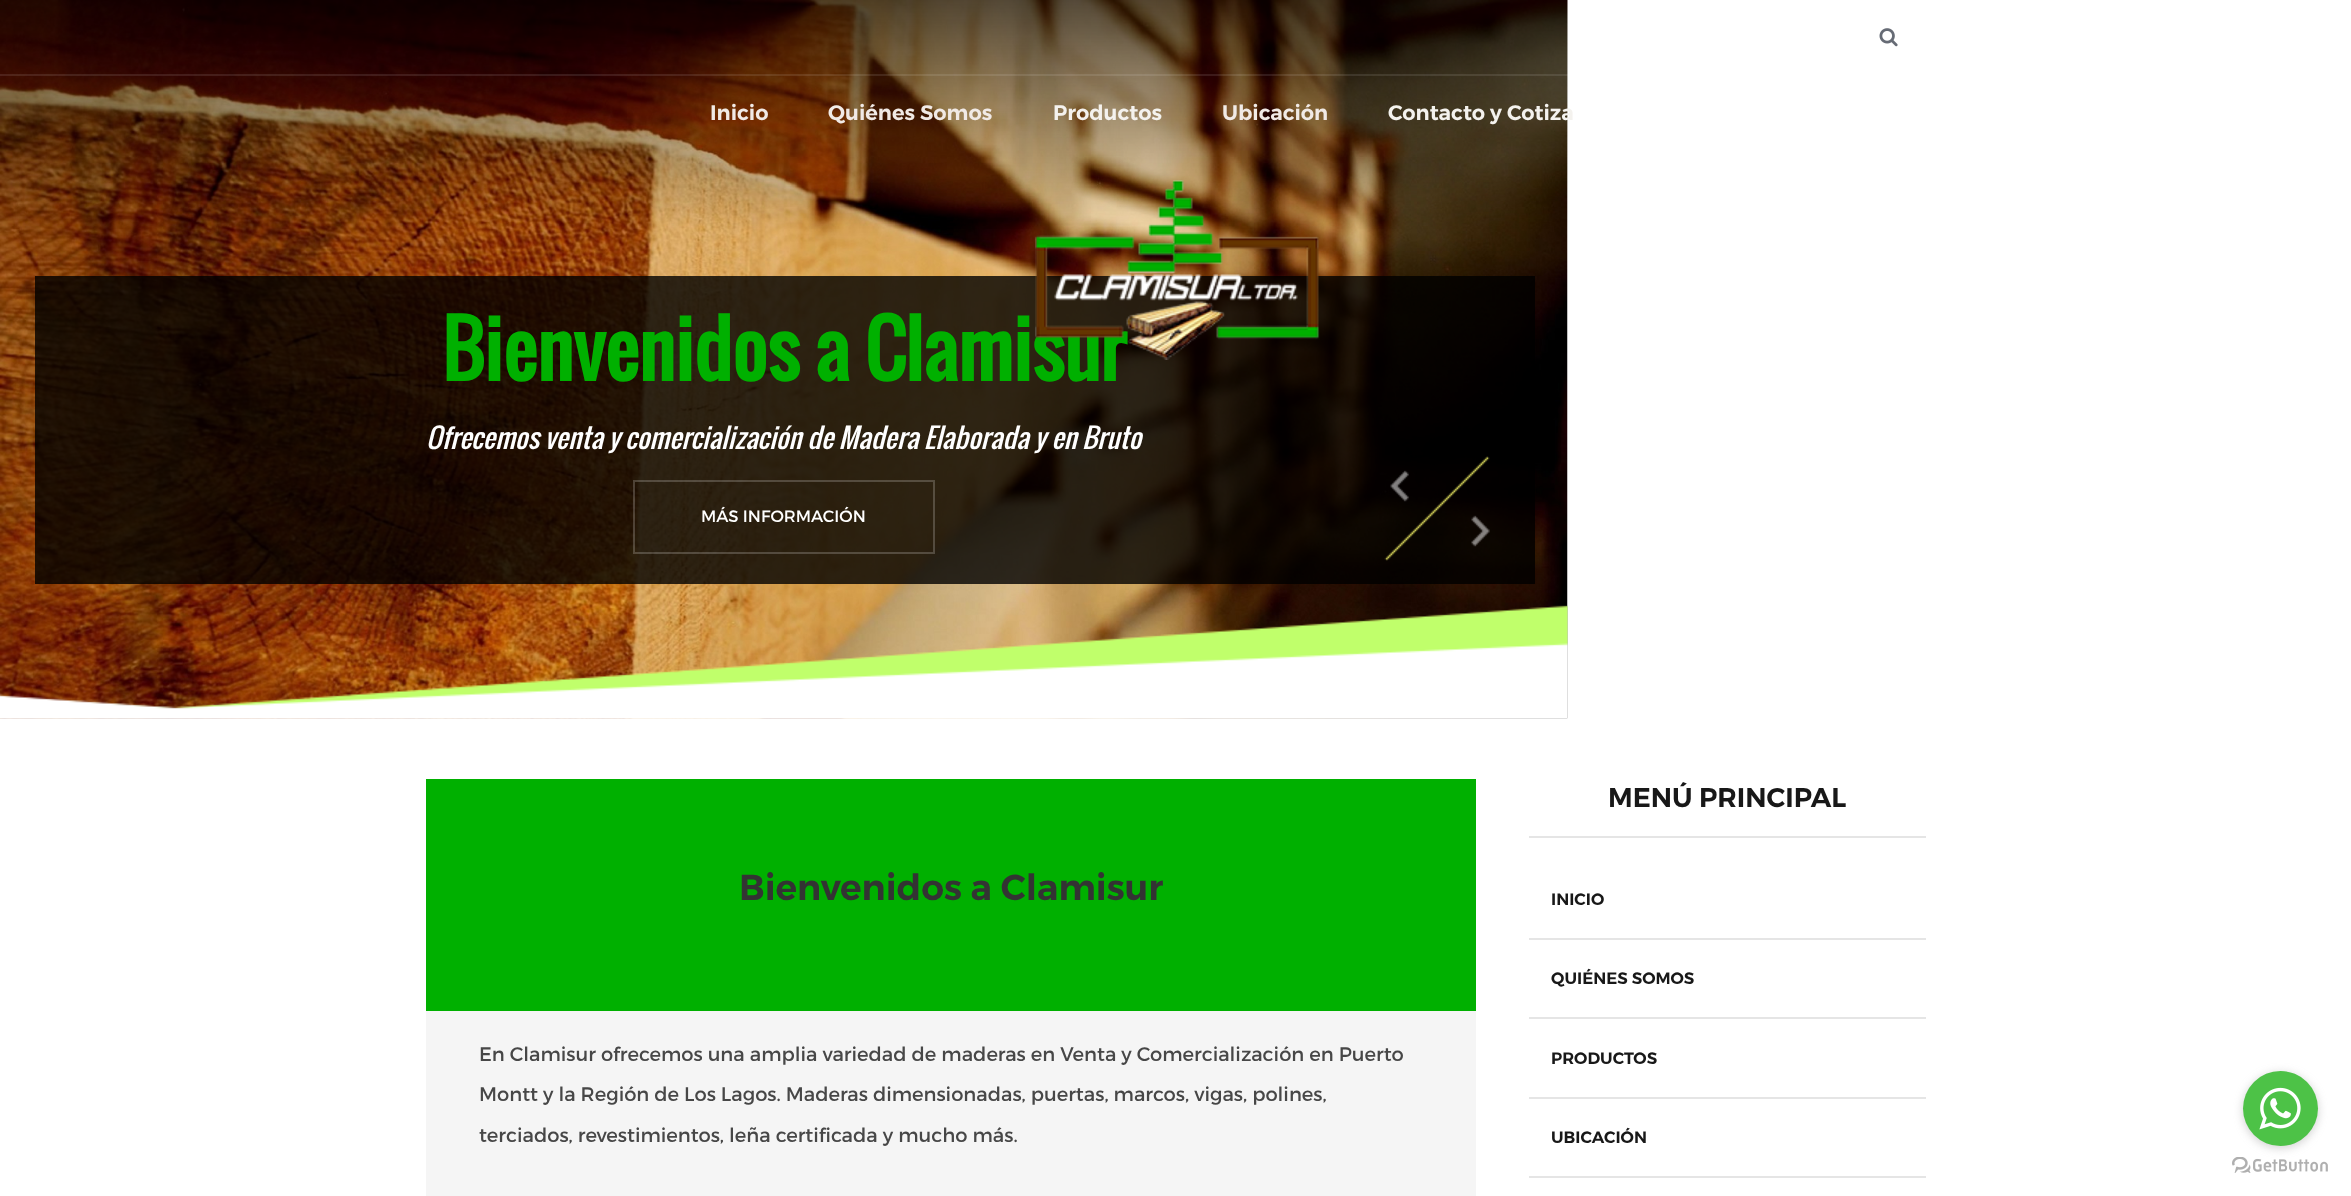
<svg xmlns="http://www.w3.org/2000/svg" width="2351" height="1196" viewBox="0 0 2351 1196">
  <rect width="100%" height="100%" fill="#fff"/>
  <image x="0" y="0" width="1568" height="719" href="img/3.png"/>
  <image x="0" y="0" width="1568" height="719" href="img/4.png"/>
  <path d="M0 74h1568v2H0z" fill="#ffffff1a"/>
  <image x="1879" y="28" width="19" height="19" href="img/1.png"/>
  <path d="M35 276h1500v308H35z" fill="#000000cc"/>
  <path d="M634 481h300v72H634z" fill="none" stroke="#ffffff33" stroke-width="2"/>
  <image x="1384" y="456" width="106" height="105" href="img/5.png"/>
  <image x="1390" y="470" width="19" height="32" href="img/6.png"/>
  <image x="1471" y="515" width="19" height="32" href="img/7.png"/>
  <path d="M426 1011h1050v185H426z" fill="#f5f5f5"/>
  <path d="M426 779h1050v232H426z" fill="#00b000"/>
  <path d="M1529 836h397v2H1529z" fill="#e5e5e5"/>
  <path d="M1529 938h397v2H1529z" fill="#e5e5e5"/>
  <path d="M1529 1017h397v2H1529z" fill="#e5e5e5"/>
  <path d="M1529 1097h397v2H1529z" fill="#e5e5e5"/>
  <path d="M1529 1176h397v2H1529z" fill="#e5e5e5"/>
  <image x="2232" y="1157" width="96" height="16" href="img/9.png"/>
  <rect x="2243" y="1073" width="75" height="75" rx="37.5" fill="#88888866" filter="blur(5px)"/>
  <circle cx="2280.5" cy="1108.5" r="37.5" fill="#4dc247"/>
  <image x="2259" y="1087" width="42" height="43" href="img/8.png"/>
  <g font-family="Montserrat" font-size="21" font-weight="600" fill="#f1eae6">
    <text x="710" y="120">Inicio</text>
    <text x="828" y="120">Quiénes Somos</text>
  </g>
  <text x="1053" y="120" font-family="Montserrat" font-size="21" font-weight="600" fill="#f4f2ee">Productos</text>
  <text x="1222" y="120" font-family="Montserrat" font-size="21" font-weight="600" fill="#f1eae6">Ubicación</text>
  <text x="1388" y="120" font-family="Montserrat" font-size="21" font-weight="600" fill="#f4f2ee">Contacto y Cotiza</text>
  <text x="442" y="381" font-family="Oswald" font-size="75" font-weight="bold" fill="#00b000">Bienvenidos a Clamisur</text>
  <image x="1035" y="180" width="284" height="180" href="img/2.png"/>
  <text x="426" y="449" font-family="Oswald" font-size="27" font-style="italic" fill="#fff">Ofrecemos venta y comercialización de Madera Elaborada y en Bruto</text>
  <text x="701" y="522" font-family="Montserrat" font-size="16.5" fill="#fff">MÁS INFORMACIÓN</text>
  <text x="739" y="900" font-family="Montserrat" font-size="36" font-weight="600" fill="#333">Bienvenidos a Clamisur</text>
  <g font-family="Montserrat" font-size="19.5" fill="#474747">
    <text x="479" y="1061">En Clamisur ofrecemos una amplia variedad de maderas en Venta y Comercialización en Puerto</text>
    <text x="479" y="1101">Montt y la Región de Los Lagos. Maderas dimensionadas, puertas, marcos, vigas, polines,</text>
    <text x="479" y="1142">terciados, revestimientos, leña certificada y mucho más.</text>
  </g>
  <text x="1608" y="807" font-family="Montserrat" font-size="27" font-weight="600" fill="#181818">MENÚ PRINCIPAL</text>
  <g font-family="Montserrat" font-size="16.5" font-weight="600" fill="#181818">
    <text x="1551" y="905">INICIO</text>
    <text x="1551" y="984">QUIÉNES SOMOS</text>
    <text x="1551" y="1064">PRODUCTOS</text>
    <text x="1551" y="1143">UBICACIÓN</text>
  </g>
</svg>
